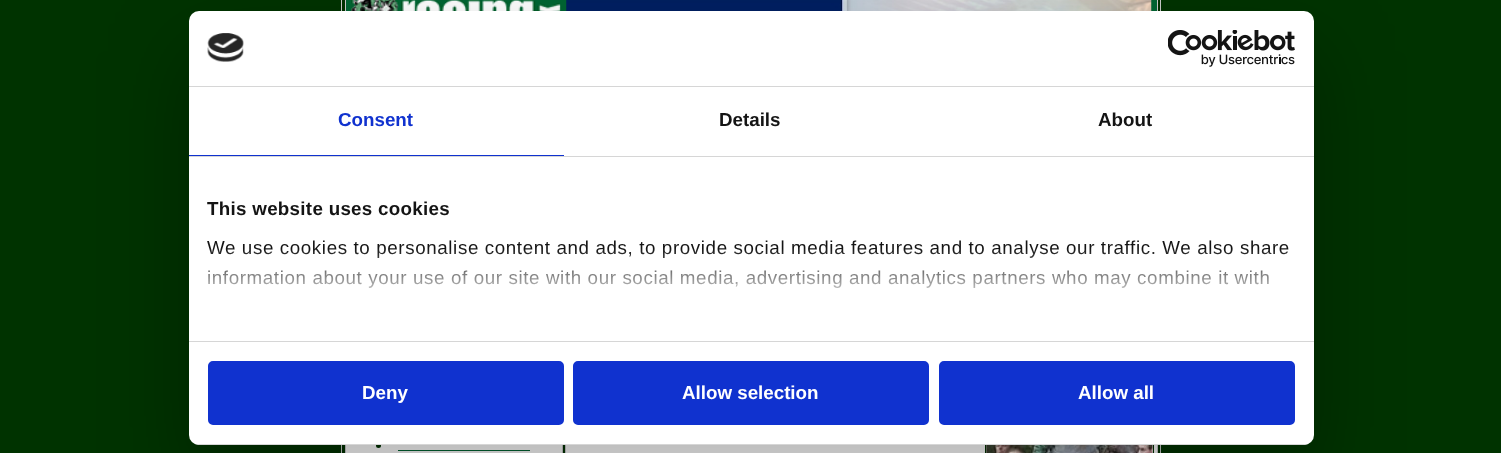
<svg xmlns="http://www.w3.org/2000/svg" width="1501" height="453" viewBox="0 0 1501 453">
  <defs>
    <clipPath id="clip1"><rect x="189" y="11" width="1125" height="434" rx="10"/></clipPath>
    <linearGradient id="g1" gradientUnits="userSpaceOnUse" x1="743" y1="341" x2="743" y2="248"><stop offset="0" stop-color="#fff"/><stop offset="0.5" stop-color="#fff" stop-opacity="0.8"/><stop offset="1" stop-color="#fff" stop-opacity="0"/></linearGradient>
  </defs>
  <rect width="100%" height="100%" fill="#030"/>
  <path d="M341.5 -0.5h819v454H341.5z" fill="none" stroke="#ccc"/>
  <path d="M346 0h811v11H346z" fill="#063"/>
  <path d="M345.5 -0.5h812v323H345.5z" fill="none" stroke="#ccc"/>
  <image x="351" y="0" width="212" height="11" href="img/1.png"/>
  <image x="566" y="0" width="586" height="11" href="img/2.png"/>
  <path d="M346 445h216v8H346z" fill="#fff"/>
  <path d="M345.5 361.5h217v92H345.5z" fill="none" stroke="#ccc"/>
  <circle cx="378.5" cy="445.5" r="2.5" fill="#030"/>
  <path d="M398 450h132v1H398z" fill="#063"/>
  <path d="M566 445h591v8H566z" fill="#fff"/>
  <path d="M565.5 361.5h592v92H565.5z" fill="none" stroke="#ccc"/>
  <path d="M985.5 400.5h168v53H985.5z" fill="none" stroke="#030"/>
  <image x="986" y="445" width="167" height="8" href="img/3.png"/>
  <rect x="189" y="51" width="1125" height="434" rx="10" fill="#0000004d" filter="blur(42.5px)"/>
  <rect x="189" y="11" width="1125" height="434" rx="10" fill="#fff"/>
  <path d="M189 86h1125v1H189z" fill="#d6d6d6"/>
  <image x="207" y="33" width="37" height="29" href="img/4.png"/>
  <image x="1168" y="30" width="127" height="37" href="img/5.png"/>
  <path d="M189 156h1125v1H189z" fill="#d6d6d6"/>
  <path d="M189 155h375v1H189z" fill="#1032cf"/>
  <path d="M189 341h1125v1H189z" fill="#d6d6d6"/>
  <g clip-path="url(#clip1)">
    <path d="M189 444h1125v1H189z" fill="#d6d6d6"/>
  </g>
  <rect x="209.5" y="362.5" width="353" height="61" rx="3.5" fill="#1032cf" stroke="#1032cf" stroke-width="3"/>
  <rect x="574.5" y="362.5" width="353" height="61" rx="3.5" fill="#1032cf" stroke="#1032cf" stroke-width="3"/>
  <rect x="940.5" y="362.5" width="353" height="61" rx="3.5" fill="#1032cf" stroke="#1032cf" stroke-width="3"/>
  <text x="338" y="126" font-family="Liberation Sans" font-size="18.75" font-weight="bold" fill="#1032cf">Consent</text>
  <g font-family="Liberation Sans" font-size="18.75" font-weight="bold" fill="#141414">
    <text x="719" y="126">Details</text>
    <text x="1098" y="126">About</text>
  </g>
  <text x="207" y="215" font-family="Liberation Sans" font-size="18.75" font-weight="bold" letter-spacing="0.3" fill="#141414">This website uses cookies</text>
  <g font-family="Liberation Sans" font-size="18.75" letter-spacing="0.62" fill="#141414">
    <text x="207" y="254">We use cookies to personalise content and ads, to provide social media features and to analyse our traffic. We also share</text>
    <text x="207" y="284">information about your use of our site with our social media, advertising and analytics partners who may combine it with</text>
  </g>
  <path d="M208 249h1081v39H208z" fill="url(#g1)"/>
  <g font-family="Liberation Sans" font-size="18.75" font-weight="bold" fill="#fff">
    <text x="362" y="399">Deny</text>
    <text x="682" y="399">Allow selection</text>
    <text x="1078" y="399">Allow all</text>
  </g>
</svg>
